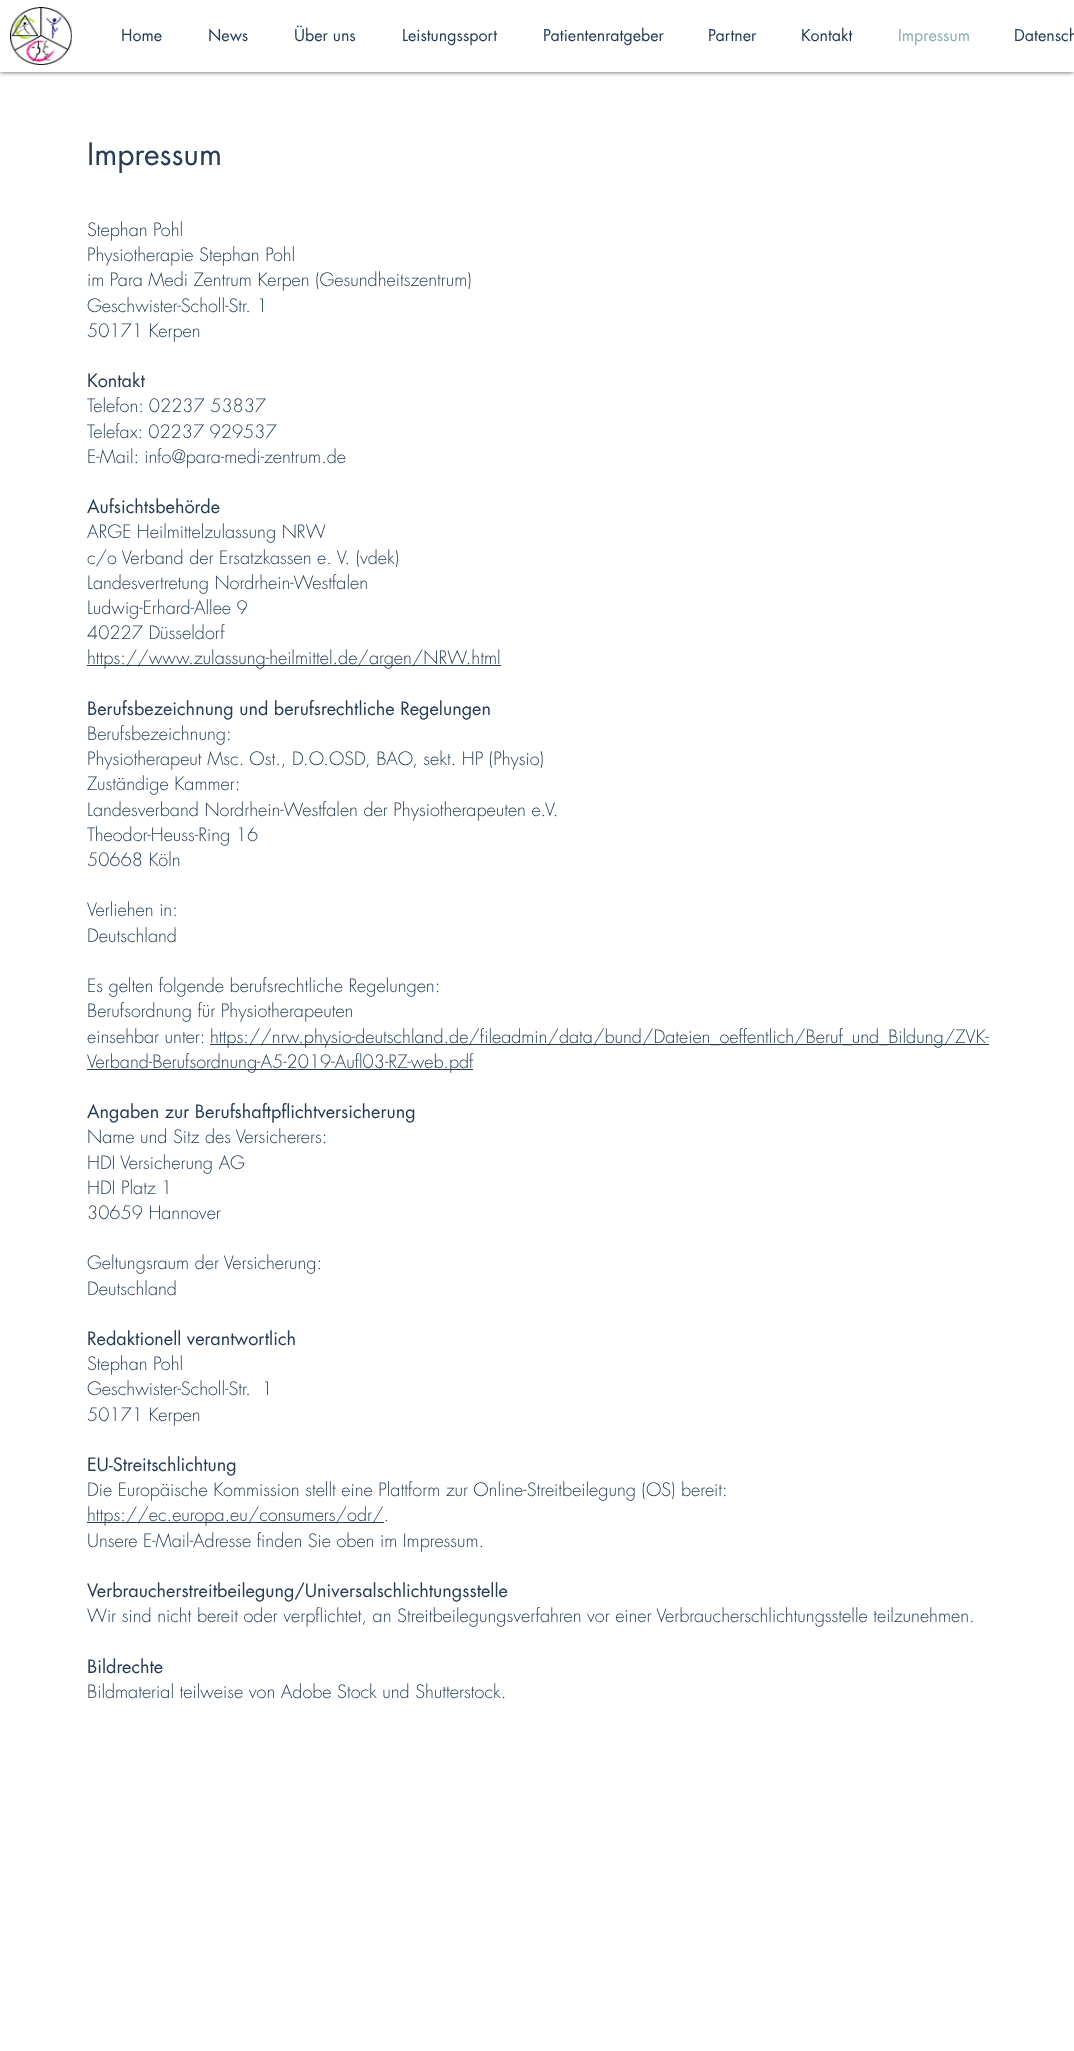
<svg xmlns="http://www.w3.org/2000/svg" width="1074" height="2051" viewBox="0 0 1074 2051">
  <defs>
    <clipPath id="clip1"><path d="M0 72h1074v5H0z"/></clipPath>
  </defs>
  <rect width="100%" height="100%" fill="#fff"/>
  <g clip-path="url(#clip1)">
    <path d="M0 0h1074v72H0z" fill="#000000b3" filter="blur(2.5px)"/>
  </g>
  <image x="10" y="7" width="62" height="58" href="img/1.png"/>
  <path d="M87 665h414v1H87z" fill="#253c57"/>
  <path d="M210 1044h779v1H210z" fill="#253c57"/>
  <path d="M87 1069h386v1H87z" fill="#253c57"/>
  <path d="M87 1522h297v1H87z" fill="#253c57"/>
  <g font-family="futura" font-size="16" fill="#253c57">
    <text x="121" y="41">Home</text>
    <text x="208" y="41">News</text>
    <text x="294" y="41">Über uns</text>
    <text x="402" y="41">Leistungssport</text>
    <text x="543" y="41">Patientenratgeber</text>
    <text x="708" y="41">Partner</text>
    <text x="801" y="41">Kontakt</text>
  </g>
  <text x="898" y="41" font-family="futura" font-size="16" fill="#89aeb3">Impressum</text>
  <text x="1014" y="41" font-family="futura" font-size="16" fill="#253c57">Datensch</text>
  <text x="87" y="165" font-family="futura" font-size="30" fill="#253c57">Impressum</text>
  <g font-family="futura" font-size="18" font-weight="300" fill="#253c57">
    <text x="87" y="236">Stephan Pohl</text>
    <text x="87" y="261">Physiotherapie Stephan Pohl</text>
    <text x="87" y="286">im Para Medi Zentrum Kerpen (Gesundheitszentrum)</text>
    <text x="87" y="312">Geschwister-Scholl-Str. 1</text>
    <text x="87" y="337">50171 Kerpen</text>
  </g>
  <text x="87" y="387" font-family="futura" font-size="18" fill="#253c57">Kontakt</text>
  <g font-family="futura" font-size="18" font-weight="300" fill="#253c57">
    <text x="87" y="412">Telefon: 02237 53837</text>
    <text x="87" y="438">Telefax: 02237 929537</text>
    <text x="87" y="463">E-Mail: info@para-medi-zentrum.de</text>
  </g>
  <text x="87" y="513" font-family="futura" font-size="18" fill="#253c57">Aufsichtsbehörde</text>
  <g font-family="futura" font-size="18" font-weight="300" fill="#253c57">
    <text x="87" y="538">ARGE Heilmittelzulassung NRW</text>
    <text x="87" y="564">c/o Verband der Ersatzkassen e. V. (vdek)</text>
    <text x="87" y="589">Landesvertretung Nordrhein-Westfalen</text>
    <text x="87" y="614">Ludwig-Erhard-Allee 9</text>
    <text x="87" y="639">40227 Düsseldorf</text>
    <text x="87" y="664">https://www.zulassung-heilmittel.de/argen/NRW.html</text>
  </g>
  <text x="87" y="715" font-family="futura" font-size="18" fill="#253c57">Berufsbezeichnung und berufsrechtliche Regelungen</text>
  <g font-family="futura" font-size="18" font-weight="300" fill="#253c57">
    <text x="87" y="740">Berufsbezeichnung:</text>
    <text x="87" y="765">Physiotherapeut Msc. Ost., D.O.OSD, BAO, sekt. HP (Physio)</text>
    <text x="87" y="790">Zuständige Kammer:</text>
    <text x="87" y="816">Landesverband Nordrhein-Westfalen der Physiotherapeuten e.V.</text>
    <text x="87" y="841">Theodor-Heuss-Ring 16</text>
    <text x="87" y="866">50668 Köln</text>
    <text x="87" y="916">Verliehen in:</text>
    <text x="87" y="942">Deutschland</text>
    <text x="87" y="992">Es gelten folgende berufsrechtliche Regelungen:</text>
    <text x="87" y="1017">Berufsordnung für Physiotherapeuten</text>
    <text x="87" y="1043">einsehbar unter:</text>
    <text x="210" y="1043">https://nrw.physio-deutschland.de/fileadmin/data/bund/Dateien_oeffentlich/Beruf_und_Bildung/ZVK-</text>
    <text x="87" y="1068">Verband-Berufsordnung-A5-2019-Aufl03-RZ-web.pdf</text>
  </g>
  <text x="87" y="1118" font-family="futura" font-size="18" fill="#253c57">Angaben zur Berufshaftpflichtversicherung</text>
  <g font-family="futura" font-size="18" font-weight="300" fill="#253c57">
    <text x="87" y="1143">Name und Sitz des Versicherers:</text>
    <text x="87" y="1169">HDI Versicherung AG</text>
    <text x="87" y="1194">HDI Platz 1</text>
    <text x="87" y="1219">30659 Hannover</text>
    <text x="87" y="1269">Geltungsraum der Versicherung:</text>
    <text x="87" y="1295">Deutschland</text>
  </g>
  <text x="87" y="1345" font-family="futura" font-size="18" fill="#253c57">Redaktionell verantwortlich</text>
  <g font-family="futura" font-size="18" font-weight="300" fill="#253c57">
    <text x="87" y="1370">Stephan Pohl</text>
    <text x="87" y="1395" word-spacing="5">Geschwister-Scholl-Str. 1</text>
    <text x="87" y="1421">50171 Kerpen</text>
  </g>
  <text x="87" y="1471" font-family="futura" font-size="18" fill="#253c57">EU-Streitschlichtung</text>
  <g font-family="futura" font-size="18" font-weight="300" fill="#253c57">
    <text x="87" y="1496">Die Europäische Kommission stellt eine Plattform zur Online-Streitbeilegung (OS) bereit:</text>
    <text x="87" y="1521">https://ec.europa.eu/consumers/odr/.</text>
    <text x="87" y="1547">Unsere E-Mail-Adresse finden Sie oben im Impressum.</text>
  </g>
  <text x="87" y="1597" font-family="futura" font-size="18" fill="#253c57">Verbraucherstreitbeilegung/Universalschlichtungsstelle</text>
  <text x="87" y="1622" font-family="futura" font-size="18" font-weight="300" fill="#253c57">Wir sind nicht bereit oder verpflichtet, an Streitbeilegungsverfahren vor einer Verbraucherschlichtungsstelle teilzunehmen.</text>
  <text x="87" y="1673" font-family="futura" font-size="18" fill="#253c57">Bildrechte</text>
  <text x="87" y="1698" font-family="futura" font-size="18" font-weight="300" fill="#253c57">Bildmaterial teilweise von Adobe Stock und Shutterstock.</text>
</svg>
